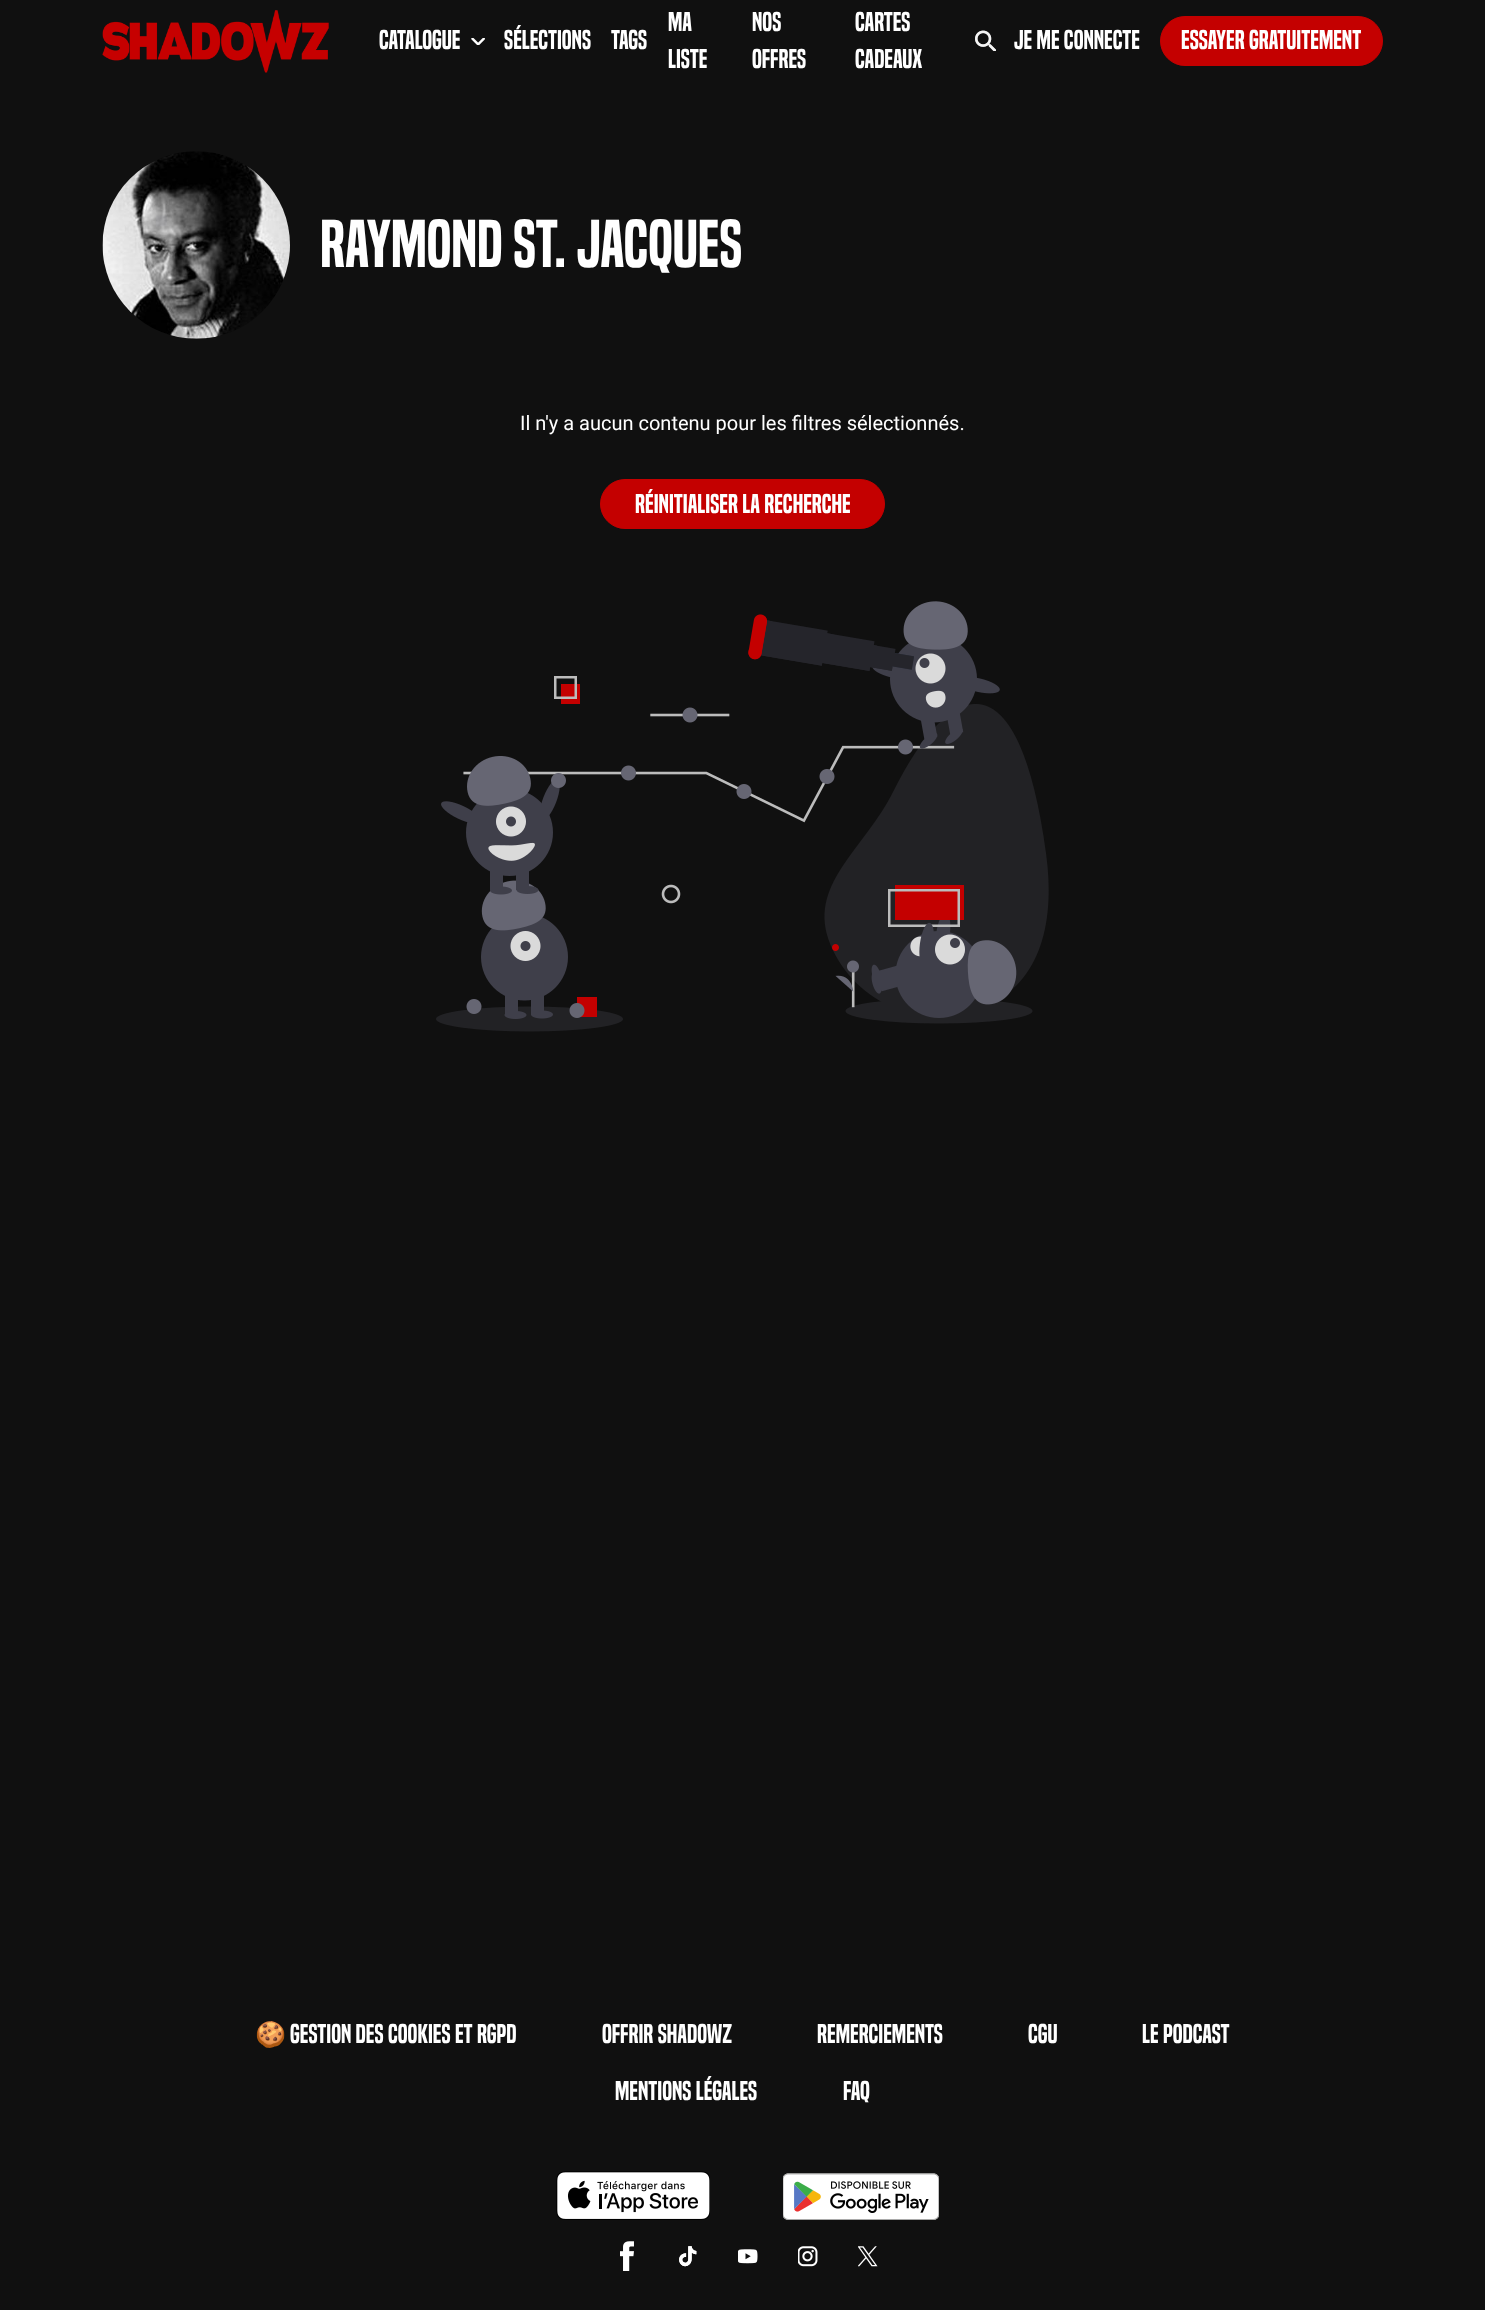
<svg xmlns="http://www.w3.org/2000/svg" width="1485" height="2310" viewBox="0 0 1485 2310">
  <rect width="100%" height="100%" fill="#101010"/>
  <image x="102" y="10" width="227" height="63" href="img/1.png"/>
  <image x="471" y="38" width="14" height="7" href="img/2.png"/>
  <image x="975" y="30" width="21" height="21" href="img/3.png"/>
  <rect x="1160.5" y="16.5" width="222" height="49" rx="24.5" fill="#c40000" stroke="#c40000"/>
  <image x="102" y="151" width="188" height="188" href="img/4.png"/>
  <rect x="600.5" y="479.5" width="284" height="49" rx="24.5" fill="#c40000" stroke="#c40000"/>
  <image x="436" y="601" width="613" height="431" href="img/5.png"/>
  <image x="556" y="2171" width="154" height="49" href="img/6.png"/>
  <image x="783" y="2173" width="156" height="47" href="img/7.png"/>
  <image x="620" y="2241" width="14" height="30" href="img/8.png"/>
  <image x="679" y="2246" width="18" height="21" href="img/9.png"/>
  <image x="738" y="2249" width="20" height="15" href="img/10.png"/>
  <image x="798" y="2246" width="20" height="21" href="img/11.png"/>
  <image x="858" y="2246" width="20" height="21" href="img/12.png"/>
  <g font-family="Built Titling" font-size="25" fill="#fff">
    <text x="379" y="49">Catalogue</text>
    <text x="504" y="49">Sélections</text>
    <text x="611" y="49">Tags</text>
    <text x="668" y="31">Ma</text>
    <text x="668" y="68">Liste</text>
    <text x="752" y="31">Nos</text>
    <text x="752" y="68">Offres</text>
    <text x="855" y="31">Cartes</text>
    <text x="855" y="68">Cadeaux</text>
    <text x="1014" y="49">Je me connecte</text>
    <text x="1181" y="49">Essayer gratuitement</text>
  </g>
  <text x="320" y="267" font-family="Built Titling" font-size="62.5" fill="#fff">Raymond St. Jacques</text>
  <text x="520" y="430" font-family="Roboto" font-size="20" fill="#fff">Il n'y a aucun contenu pour les filtres sélectionnés.</text>
  <text x="635" y="513" font-family="Built Titling" font-size="25" fill="#fff">Réinitialiser la recherche</text>
  <text x="255" y="2043" font-family="Noto Color Emoji" font-size="25" font-weight="bold" fill="#fff">🍪</text>
  <g font-family="Built Titling" font-size="25" fill="#fff">
    <text x="290" y="2043">Gestion des cookies et RGPD</text>
    <text x="602" y="2043">Offrir Shadowz</text>
    <text x="817" y="2043">Remerciements</text>
    <text x="1028" y="2043">CGU</text>
    <text x="1142" y="2043">Le Podcast</text>
    <text x="615" y="2100">Mentions Légales</text>
    <text x="843" y="2100">FAQ</text>
  </g>
</svg>
